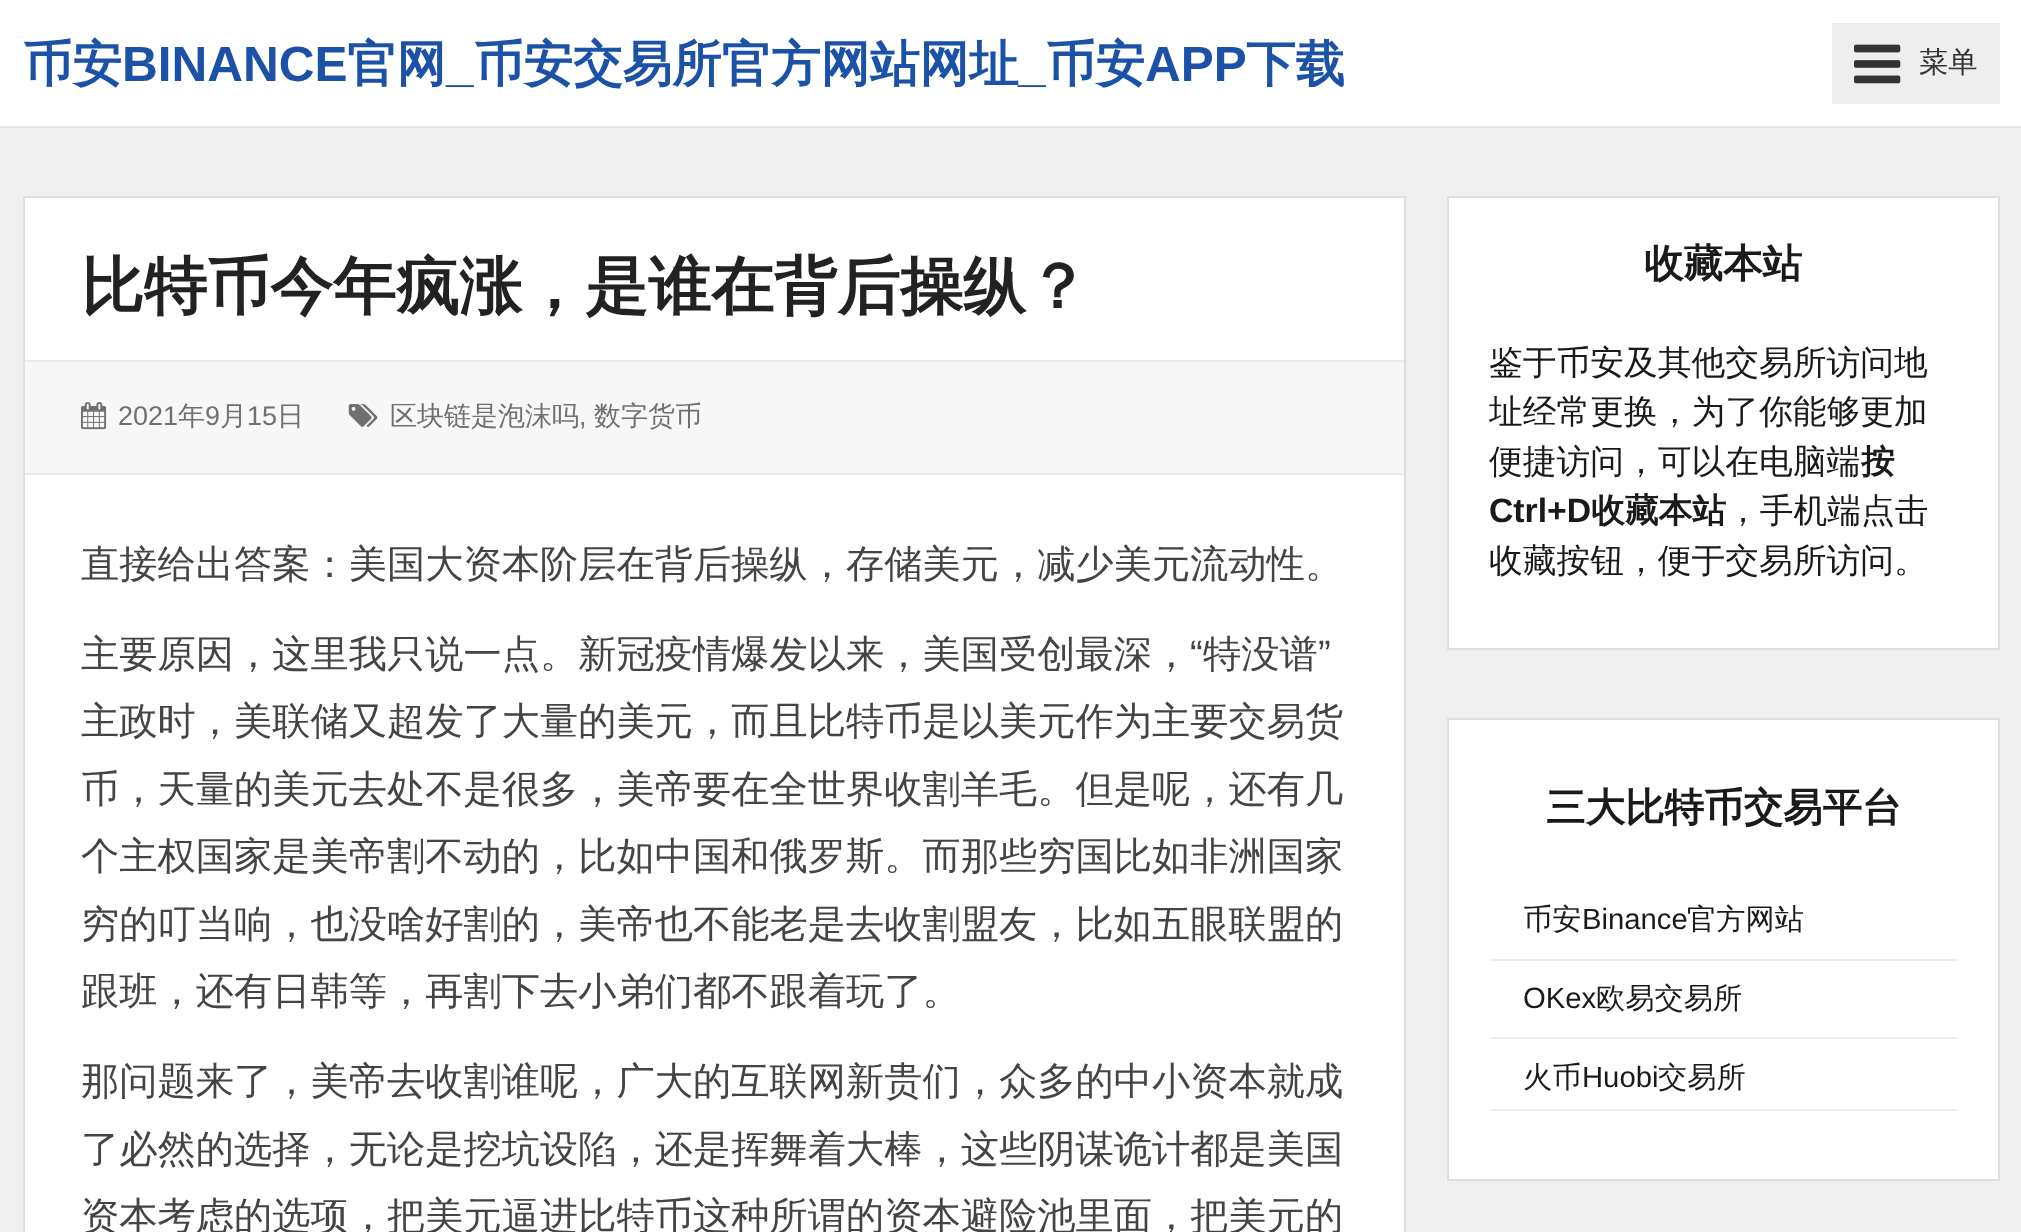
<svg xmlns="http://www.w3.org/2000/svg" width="2021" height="1232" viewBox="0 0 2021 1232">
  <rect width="100%" height="100%" fill="#efefef"/>
  <path d="M0 0h2021v126H0z" fill="#fff"/>
  <path d="M0 126h2021v2H0z" fill="#e5e5e5"/>
  <path d="M1832 23h168v81H1832z" fill="#eee"/>
  <image x="1854" y="44" width="47" height="40" href="img/1.png"/>
  <path d="M24 197h1381v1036H24z" fill="#fff" stroke="#dedede" stroke-width="2"/>
  <path d="M25 362h1379v111H25z" fill="#f7f7f7"/>
  <path d="M25 360h1379v2H25z" fill="#eaeaea"/>
  <path d="M25 473h1379v2H25z" fill="#eaeaea"/>
  <image x="81" y="402" width="26" height="28" href="img/2.png"/>
  <image x="348" y="404" width="30" height="23" href="img/3.png"/>
  <path d="M1448 197h551v452H1448z" fill="#fff" stroke="#dedede" stroke-width="2"/>
  <path d="M1448 719h551v461H1448z" fill="#fff" stroke="#dedede" stroke-width="2"/>
  <path d="M1490 959h468v2H1490z" fill="#eee"/>
  <path d="M1490 1037h468v2H1490z" fill="#eee"/>
  <path d="M1490 1109h468v2H1490z" fill="#eee"/>
  <text x="23" y="81" font-family="WenQuanYi Zen Hei" font-size="49.5" font-weight="bold" fill="#1b52a7">币安</text>
  <text x="122" y="81" font-family="Liberation Sans" font-size="49.5" font-weight="bold" fill="#1b52a7">BINANCE</text>
  <g font-family="WenQuanYi Zen Hei" font-size="49.5" font-weight="bold" fill="#1b52a7">
    <text x="347" y="81">官网</text>
    <text x="474" y="81">币安交易所官方网站网址</text>
    <text x="1046" y="81">币安</text>
  </g>
  <text x="1145" y="81" font-family="Liberation Sans" font-size="49.5" font-weight="bold" fill="#1b52a7">APP</text>
  <text x="1246" y="81" font-family="WenQuanYi Zen Hei" font-size="49.5" font-weight="bold" fill="#1b52a7">下载</text>
  <g font-family="Liberation Sans" font-size="49.5" font-weight="bold" fill="#1b52a7">
    <text x="446" y="81">_</text>
    <text x="1018" y="81">_</text>
  </g>
  <text x="1919" y="72" font-family="WenQuanYi Zen Hei" font-size="29.25" font-weight="500" fill="#333">菜单</text>
  <text x="81" y="308" font-family="WenQuanYi Zen Hei" font-size="63" font-weight="bold" fill="#222">比特币今年疯涨，是谁在背后操纵？</text>
  <text x="118" y="425" font-family="Liberation Sans" font-size="27" fill="#707070">2021</text>
  <text x="178" y="425" font-family="WenQuanYi Zen Hei" font-size="27" font-weight="500" fill="#707070">年</text>
  <text x="205" y="425" font-family="Liberation Sans" font-size="27" fill="#707070">9</text>
  <text x="220" y="425" font-family="WenQuanYi Zen Hei" font-size="27" font-weight="500" fill="#707070">月</text>
  <text x="247" y="425" font-family="Liberation Sans" font-size="27" fill="#707070">15</text>
  <g font-family="WenQuanYi Zen Hei" font-size="27" font-weight="500" fill="#707070">
    <text x="277" y="425">日</text>
    <text x="390" y="425">区块链是泡沫吗</text>
  </g>
  <text x="579" y="425" font-family="Liberation Sans" font-size="27" fill="#707070">,</text>
  <text x="594" y="425" font-family="WenQuanYi Zen Hei" font-size="27" font-weight="500" fill="#707070">数字货币</text>
  <g font-family="WenQuanYi Zen Hei" font-size="38.25" font-weight="500" fill="#444">
    <text x="81" y="577">直接给出答案：美国大资本阶层在背后操纵，存储美元，减少美元流动性。</text>
    <text x="81" y="667">主要原因，这里我只说一点。新冠疫情爆发以来，美国受创最深，</text>
  </g>
  <text x="1190" y="667" font-family="Liberation Sans" font-size="38.25" fill="#444">“</text>
  <text x="1203" y="667" font-family="WenQuanYi Zen Hei" font-size="38.25" font-weight="500" fill="#444">特没谱</text>
  <text x="1318" y="667" font-family="Liberation Sans" font-size="38.25" fill="#444">”</text>
  <g font-family="WenQuanYi Zen Hei" font-size="38.25" font-weight="500" fill="#444">
    <text x="81" y="734">主政时，美联储又超发了大量的美元，而且比特币是以美元作为主要交易货</text>
    <text x="81" y="802">币，天量的美元去处不是很多，美帝要在全世界收割羊毛。但是呢，还有几</text>
    <text x="81" y="869">个主权国家是美帝割不动的，比如中国和俄罗斯。而那些穷国比如非洲国家</text>
    <text x="81" y="937">穷的叮当响，也没啥好割的，美帝也不能老是去收割盟友，比如五眼联盟的</text>
    <text x="81" y="1004">跟班，还有日韩等，再割下去小弟们都不跟着玩了。</text>
    <text x="81" y="1094">那问题来了，美帝去收割谁呢，广大的互联网新贵们，众多的中小资本就成</text>
    <text x="81" y="1162">了必然的选择，无论是挖坑设陷，还是挥舞着大棒，这些阴谋诡计都是美国</text>
    <text x="81" y="1229">资本考虑的选项，把美元逼进比特币这种所谓的资本避险池里面，把美元的</text>
  </g>
  <text x="1644" y="277" font-family="WenQuanYi Zen Hei" font-size="39.5" font-weight="bold" fill="#1a1a1a">收藏本站</text>
  <g font-family="WenQuanYi Zen Hei" font-size="33.75" font-weight="500" fill="#1a1a1a">
    <text x="1489" y="374">鉴于币安及其他交易所访问地</text>
    <text x="1489" y="423">址经常更换，为了你能够更加</text>
    <text x="1489" y="473">便捷访问，可以在电脑端</text>
  </g>
  <text x="1861" y="473" font-family="WenQuanYi Zen Hei" font-size="33.75" font-weight="bold" fill="#1a1a1a">按</text>
  <text x="1489" y="522" font-family="Liberation Sans" font-size="33.75" font-weight="bold" fill="#1a1a1a">Ctrl+D</text>
  <text x="1591" y="522" font-family="WenQuanYi Zen Hei" font-size="33.75" font-weight="bold" fill="#1a1a1a">收藏本站</text>
  <g font-family="WenQuanYi Zen Hei" font-size="33.75" font-weight="500" fill="#1a1a1a">
    <text x="1726" y="522">，手机端点击</text>
    <text x="1489" y="572">收藏按钮，便于交易所访问。</text>
  </g>
  <text x="1546" y="821" font-family="WenQuanYi Zen Hei" font-size="39.5" font-weight="bold" fill="#1a1a1a">三大比特币交易平台</text>
  <text x="1523" y="929" font-family="WenQuanYi Zen Hei" font-size="29.25" font-weight="500" fill="#1a1a1a">币安</text>
  <text x="1582" y="929" font-family="Liberation Sans" font-size="29.25" fill="#1a1a1a">Binance</text>
  <text x="1687" y="929" font-family="WenQuanYi Zen Hei" font-size="29.25" font-weight="500" fill="#1a1a1a">官方网站</text>
  <text x="1523" y="1008" font-family="Liberation Sans" font-size="29.25" fill="#1a1a1a">OKex</text>
  <g font-family="WenQuanYi Zen Hei" font-size="29.25" font-weight="500" fill="#1a1a1a">
    <text x="1596" y="1008">欧易交易所</text>
    <text x="1523" y="1087">火币</text>
  </g>
  <text x="1582" y="1087" font-family="Liberation Sans" font-size="29.25" fill="#1a1a1a">Huobi</text>
  <text x="1658" y="1087" font-family="WenQuanYi Zen Hei" font-size="29.25" font-weight="500" fill="#1a1a1a">交易所</text>
</svg>
